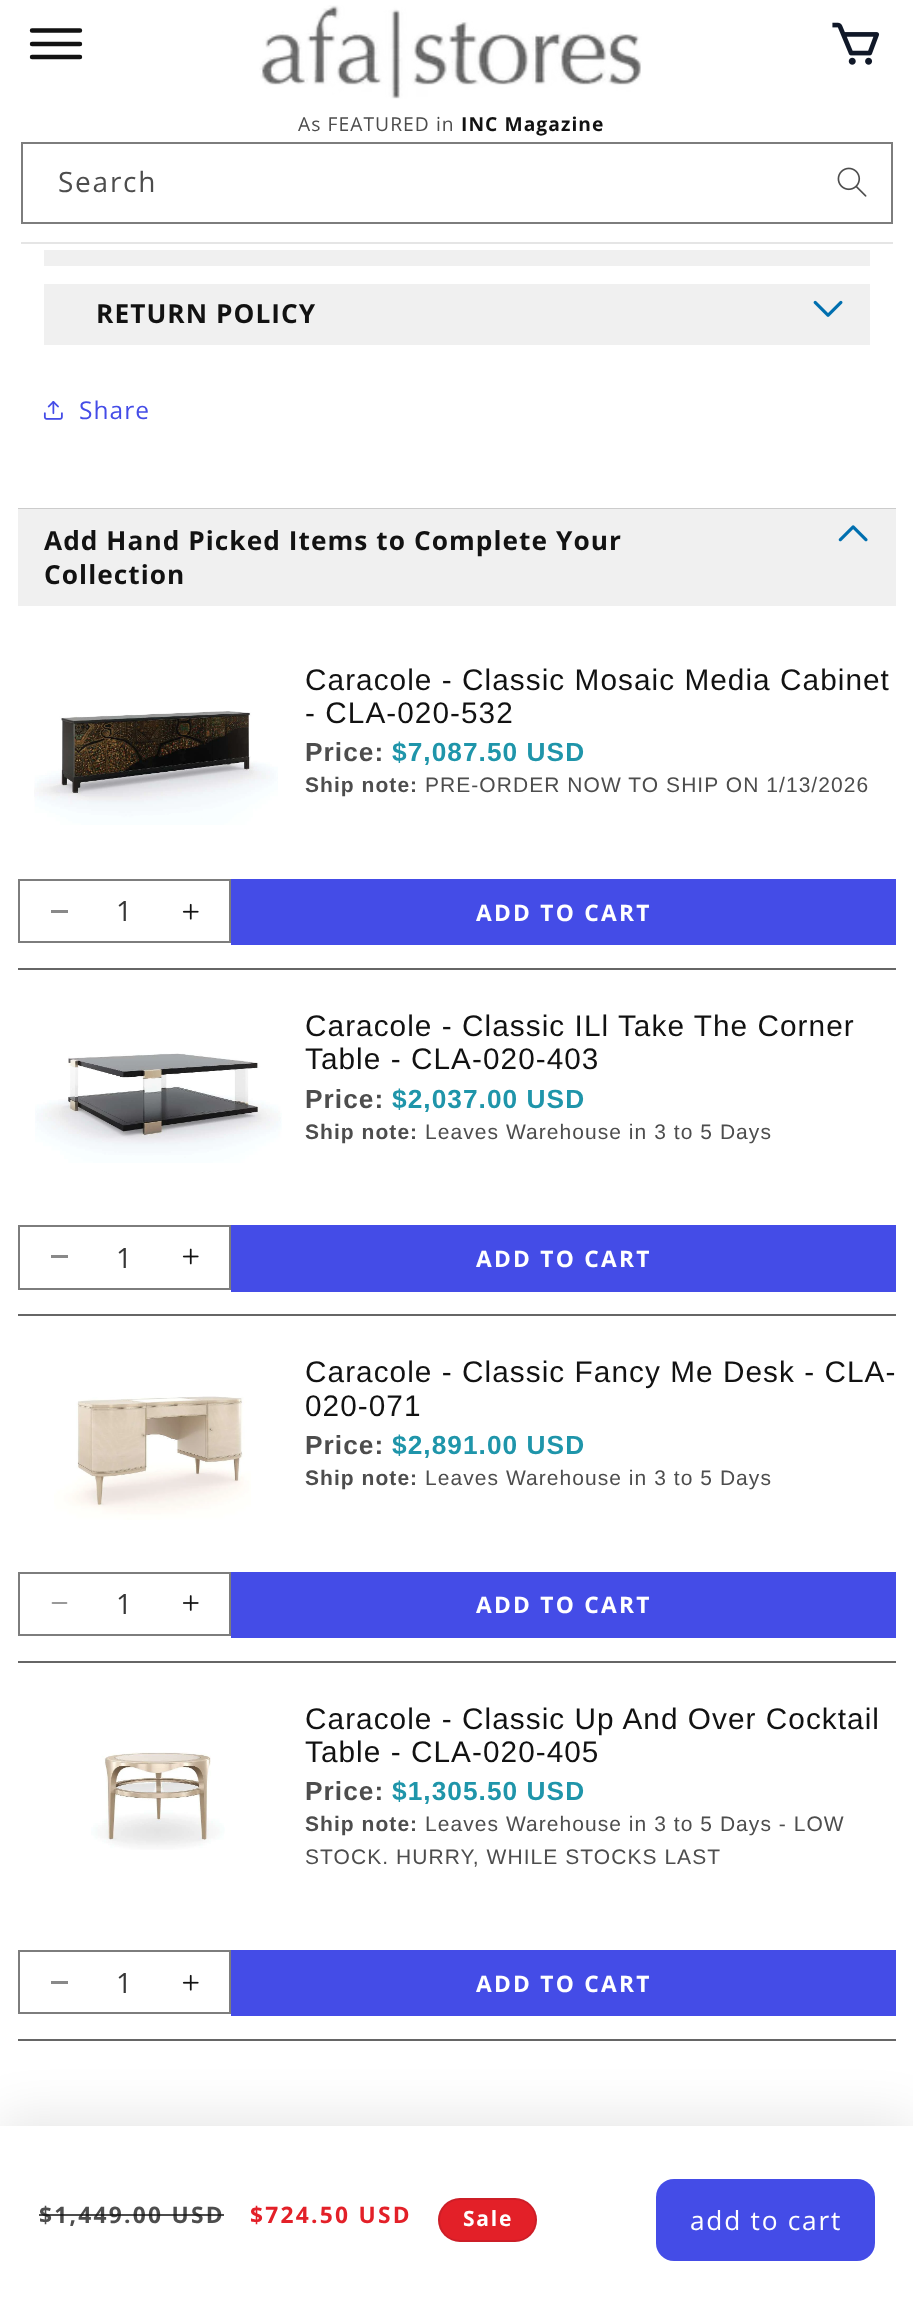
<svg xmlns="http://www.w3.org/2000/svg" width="913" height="2313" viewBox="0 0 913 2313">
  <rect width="100%" height="100%" fill="#fff"/>
  <path d="M21 242h872v2H21z" fill="#e5e5e5"/>
  <path d="M32 30.5H80M32 44H80M32 57H80" fill="none" stroke="#121212" stroke-width="4.4" stroke-linecap="round"/>
  <image x="832" y="22" width="48" height="43" href="img/1.png"/>
  <image x="259" y="5" width="383" height="94" href="img/2.png"/>
  <image x="837" y="167" width="30" height="30" href="img/3.png"/>
  <path d="M22 143h870v80H22z" fill="none" stroke="#7d7d7d" stroke-width="2"/>
  <path d="M44 250h826v16H44z" fill="#f0f0f0"/>
  <path d="M44 284h826v61H44z" fill="#f0f0f0"/>
  <image x="813" y="300" width="30" height="17" href="img/4.png"/>
  <image x="43" y="401" width="20" height="19" href="img/5.png"/>
  <path d="M18 508h878v1H18z" fill="#ccc"/>
  <path d="M18 509h878v97H18z" fill="#f0f0f0"/>
  <image x="838" y="525" width="30" height="17" href="img/6.png"/>
  <path d="M18 968h878v2H18z" fill="#666"/>
  <image x="34" y="711" width="244" height="114" href="img/7.png"/>
  <path d="M51 910h17v3H51z" fill="#898989"/>
  <image x="182" y="903" width="17" height="17" href="img/8.png"/>
  <path d="M19 880h211v62H19z" fill="none" stroke="#7d7d7d" stroke-width="2"/>
  <path d="M231 879h665v66H231z" fill="#444ce7"/>
  <path d="M18 1314h878v2H18z" fill="#666"/>
  <image x="35" y="1053" width="247" height="110" href="img/9.png"/>
  <path d="M51 1255h17v3H51z" fill="#898989"/>
  <image x="182" y="1248" width="17" height="17" href="img/10.png"/>
  <path d="M19 1226h211v63H19z" fill="none" stroke="#7d7d7d" stroke-width="2"/>
  <path d="M231 1225h665v67H231z" fill="#444ce7"/>
  <path d="M18 1661h878v2H18z" fill="#666"/>
  <image x="54" y="1396" width="197" height="124" href="img/11.png"/>
  <image x="51" y="1602" width="17" height="2" href="img/12.png"/>
  <image x="183" y="1595" width="16" height="16" href="img/13.png"/>
  <path d="M19 1573h211v62H19z" fill="none" stroke="#7d7d7d" stroke-width="2"/>
  <path d="M231 1572h665v66H231z" fill="#444ce7"/>
  <path d="M18 2039h878v2H18z" fill="#666"/>
  <image x="91" y="1752" width="134" height="98" href="img/14.png"/>
  <path d="M51 1981h17v3H51z" fill="#898989"/>
  <image x="182" y="1974" width="17" height="17" href="img/8.png"/>
  <path d="M19 1951h211v62H19z" fill="none" stroke="#7d7d7d" stroke-width="2"/>
  <path d="M231 1950h665v66H231z" fill="#444ce7"/>
  <path d="M0 2119h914v188H0z" fill="#0000001a" filter="blur(26px)"/>
  <path d="M0 2126h913v187H0z" fill="#fff"/>
  <rect x="438" y="2198" width="99" height="44" rx="22" fill="#e32028"/>
  <rect x="439" y="2199" width="97" height="42" rx="21" fill="none" stroke="#1018281a" stroke-width="2"/>
  <rect x="656" y="2179" width="219" height="82" rx="18" fill="#444ce7"/>
  <text x="298" y="131" font-family="Open Sans" font-size="19.25" letter-spacing="1.05" fill="#4d4d4d">As FEATURED in</text>
  <text x="461" y="131" font-family="Open Sans" font-size="19.25" font-weight="bold" letter-spacing="1.05" fill="#121212">INC Magazine</text>
  <text x="58" y="192" font-family="Open Sans" font-size="28" letter-spacing="1.75" fill="#4d4d4d">Search</text>
  <text x="96" y="323" font-family="Open Sans" font-size="26.25" font-weight="bold" letter-spacing="1.05" fill="#121212">RETURN POLICY</text>
  <text x="79" y="419" font-family="Open Sans" font-size="24.5" letter-spacing="1.05" fill="#444ce7">Share</text>
  <g font-family="Open Sans" font-size="26.25" font-weight="bold" letter-spacing="1.05" fill="#121212">
    <text x="44" y="550">Add Hand Picked Items to Complete Your</text>
    <text x="44" y="584">Collection</text>
  </g>
  <g font-family="Liberation Sans" font-size="29.75" letter-spacing="1.05" fill="#121212">
    <text x="305" y="690">Caracole - Classic Mosaic Media Cabinet</text>
    <text x="305" y="723">- CLA-020-532</text>
  </g>
  <text x="305" y="761" font-family="Liberation Sans" font-size="26.25" font-weight="bold" letter-spacing="1.05" fill="#4d4d4d">Price:</text>
  <text x="392" y="761" font-family="Liberation Sans" font-size="26.25" font-weight="bold" letter-spacing="1.05" fill="#1f95aa">$7,087.50 USD</text>
  <text x="305" y="792" font-family="Liberation Sans" font-size="21" font-weight="bold" letter-spacing="1.05" fill="#4d4d4d">Ship note:</text>
  <text x="425" y="792" font-family="Liberation Sans" font-size="21" letter-spacing="1.05" fill="#4d4d4d">PRE-ORDER NOW TO SHIP ON 1/13/2026</text>
  <text x="116" y="921" font-family="Open Sans" font-size="28" fill="#363636">1</text>
  <text x="476" y="921" font-family="Open Sans" font-size="22.75" font-weight="bold" letter-spacing="2.25" fill="#fff">ADD TO CART</text>
  <g font-family="Liberation Sans" font-size="29.75" letter-spacing="1.05" fill="#121212">
    <text x="305" y="1036">Caracole - Classic ILl Take The Corner</text>
    <text x="305" y="1069">Table - CLA-020-403</text>
  </g>
  <text x="305" y="1108" font-family="Liberation Sans" font-size="26.25" font-weight="bold" letter-spacing="1.05" fill="#4d4d4d">Price:</text>
  <text x="392" y="1108" font-family="Liberation Sans" font-size="26.25" font-weight="bold" letter-spacing="1.05" fill="#1f95aa">$2,037.00 USD</text>
  <text x="305" y="1139" font-family="Liberation Sans" font-size="21" font-weight="bold" letter-spacing="1.05" fill="#4d4d4d">Ship note:</text>
  <text x="425" y="1139" font-family="Liberation Sans" font-size="21" letter-spacing="1.05" fill="#4d4d4d">Leaves Warehouse in 3 to 5 Days</text>
  <text x="116" y="1268" font-family="Open Sans" font-size="28" fill="#363636">1</text>
  <text x="476" y="1267" font-family="Open Sans" font-size="22.75" font-weight="bold" letter-spacing="2.25" fill="#fff">ADD TO CART</text>
  <g font-family="Liberation Sans" font-size="29.75" letter-spacing="1.05" fill="#121212">
    <text x="305" y="1382">Caracole - Classic Fancy Me Desk - CLA-</text>
    <text x="305" y="1416">020-071</text>
  </g>
  <text x="305" y="1454" font-family="Liberation Sans" font-size="26.25" font-weight="bold" letter-spacing="1.05" fill="#4d4d4d">Price:</text>
  <text x="392" y="1454" font-family="Liberation Sans" font-size="26.25" font-weight="bold" letter-spacing="1.05" fill="#1f95aa">$2,891.00 USD</text>
  <text x="305" y="1485" font-family="Liberation Sans" font-size="21" font-weight="bold" letter-spacing="1.05" fill="#4d4d4d">Ship note:</text>
  <text x="425" y="1485" font-family="Liberation Sans" font-size="21" letter-spacing="1.05" fill="#4d4d4d">Leaves Warehouse in 3 to 5 Days</text>
  <text x="116" y="1614" font-family="Open Sans" font-size="28" fill="#363636">1</text>
  <text x="476" y="1613" font-family="Open Sans" font-size="22.75" font-weight="bold" letter-spacing="2.25" fill="#fff">ADD TO CART</text>
  <g font-family="Liberation Sans" font-size="29.75" letter-spacing="1.05" fill="#121212">
    <text x="305" y="1729">Caracole - Classic Up And Over Cocktail</text>
    <text x="305" y="1762">Table - CLA-020-405</text>
  </g>
  <text x="305" y="1800" font-family="Liberation Sans" font-size="26.25" font-weight="bold" letter-spacing="1.05" fill="#4d4d4d">Price:</text>
  <text x="392" y="1800" font-family="Liberation Sans" font-size="26.25" font-weight="bold" letter-spacing="1.05" fill="#1f95aa">$1,305.50 USD</text>
  <text x="305" y="1831" font-family="Liberation Sans" font-size="21" font-weight="bold" letter-spacing="1.05" fill="#4d4d4d">Ship note:</text>
  <g font-family="Liberation Sans" font-size="21" letter-spacing="1.05" fill="#4d4d4d">
    <text x="425" y="1831">Leaves Warehouse in 3 to 5 Days - LOW</text>
    <text x="305" y="1864">STOCK. HURRY, WHILE STOCKS LAST</text>
  </g>
  <text x="116" y="1993" font-family="Open Sans" font-size="28" fill="#363636">1</text>
  <text x="476" y="1992" font-family="Open Sans" font-size="22.75" font-weight="bold" letter-spacing="2.25" fill="#fff">ADD TO CART</text>
  <text x="39" y="2223" font-family="Open Sans" font-size="22.75" font-weight="bold" letter-spacing="2.25" fill="#4d4d4d">$1,449.00 USD</text>
  <path d="M39 2214h185v2H39z" fill="#121212bf"/>
  <text x="250" y="2223" font-family="Open Sans" font-size="22.75" font-weight="bold" letter-spacing="2.25" fill="#e32028">$724.50 USD</text>
  <text x="463" y="2226" font-family="Open Sans" font-size="21" font-weight="bold" letter-spacing="1.75" fill="#fff">Sale</text>
  <text x="690" y="2230" font-family="Open Sans" font-size="26.25" letter-spacing="1.75" fill="#fff">add to cart</text>
</svg>
